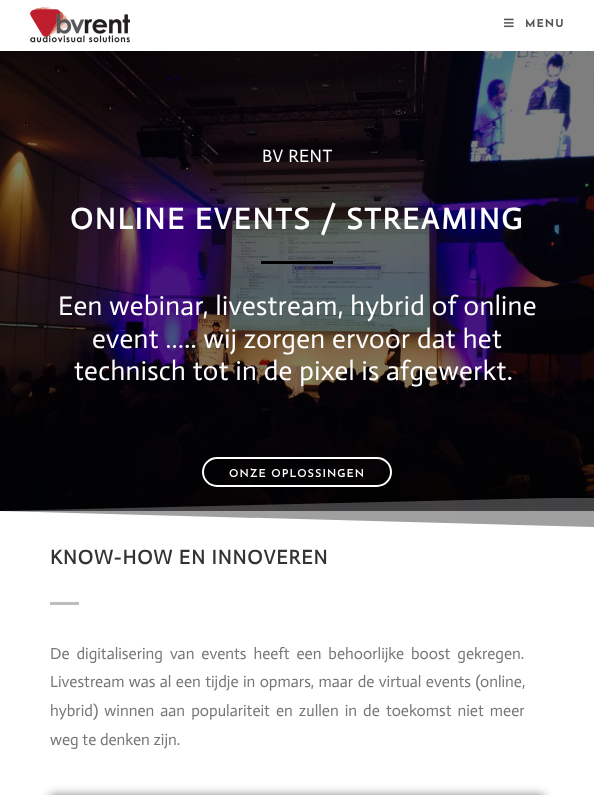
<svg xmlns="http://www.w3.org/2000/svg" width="594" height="795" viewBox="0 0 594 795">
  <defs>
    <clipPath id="clip1"><path d="M0 498h594v30H0z"/></clipPath>
  </defs>
  <rect width="100%" height="100%" fill="#fff"/>
  <image x="30" y="7" width="100" height="36" href="img/1.png"/>
  <image x="504" y="18" width="10" height="10" href="img/2.png"/>
  <image x="0" y="51" width="594" height="476" href="img/3.png"/>
  <path d="M261 261h72v3H261z" fill="#000"/>
  <rect x="203" y="458" width="188" height="28" rx="14" fill="none" stroke="#fff" stroke-width="2"/>
  <path d="M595 527H-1V511Z" fill="#fff"/>
  <path d="M1 511h593v16H1z" fill="#ffffff80"/>
  <g clip-path="url(#clip1)">
    <path d="M-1 527H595V497L-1 511Z" fill="#ffffff40"/>
  </g>
  <path d="M50 602h29v3H50z" fill="#bebebe"/>
  <path d="M50 795h494v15H50z" fill="#00000080" filter="blur(5px)"/>
  <text x="525" y="27" font-family="Josefin Sans" font-size="11" font-weight="bold" letter-spacing="1" fill="#555">MENU</text>
  <text x="262" y="162" font-family="Actor" font-size="18" letter-spacing="0.4" fill="#fff">BV RENT</text>
  <text x="70" y="229" font-family="Actor" font-size="30" font-weight="bold" letter-spacing="2" fill="#fff">ONLINE EVENTS / STREAMING</text>
  <g font-family="Actor" font-size="27" letter-spacing="0.4" fill="#fff">
    <text x="58" y="315">Een webinar, livestream, hybrid of online</text>
    <text x="92" y="348">event ….. wij zorgen ervoor dat het</text>
    <text x="74" y="380">technisch tot in de pixel is afgewerkt.</text>
  </g>
  <text x="229" y="477" font-family="Josefin Sans" font-size="11" font-weight="600" letter-spacing="1" fill="#fff">ONZE OPLOSSINGEN</text>
  <text x="50" y="564" font-family="Actor" font-size="20" font-weight="bold" letter-spacing="1" fill="#333">KNOW-HOW EN INNOVEREN</text>
  <g font-family="Actor" font-size="16" fill="#777">
    <text x="50" y="659" word-spacing="3.25">De digitalisering van events heeft een behoorlijke boost gekregen.</text>
    <text x="50" y="687" word-spacing="0.75">Livestream was al een tijdje in opmars, maar de virtual events (online,</text>
    <text x="50" y="716" word-spacing="2.4">hybrid) winnen aan populariteit en zullen in de toekomst niet meer</text>
    <text x="50" y="745">weg te denken zijn.</text>
  </g>
</svg>
